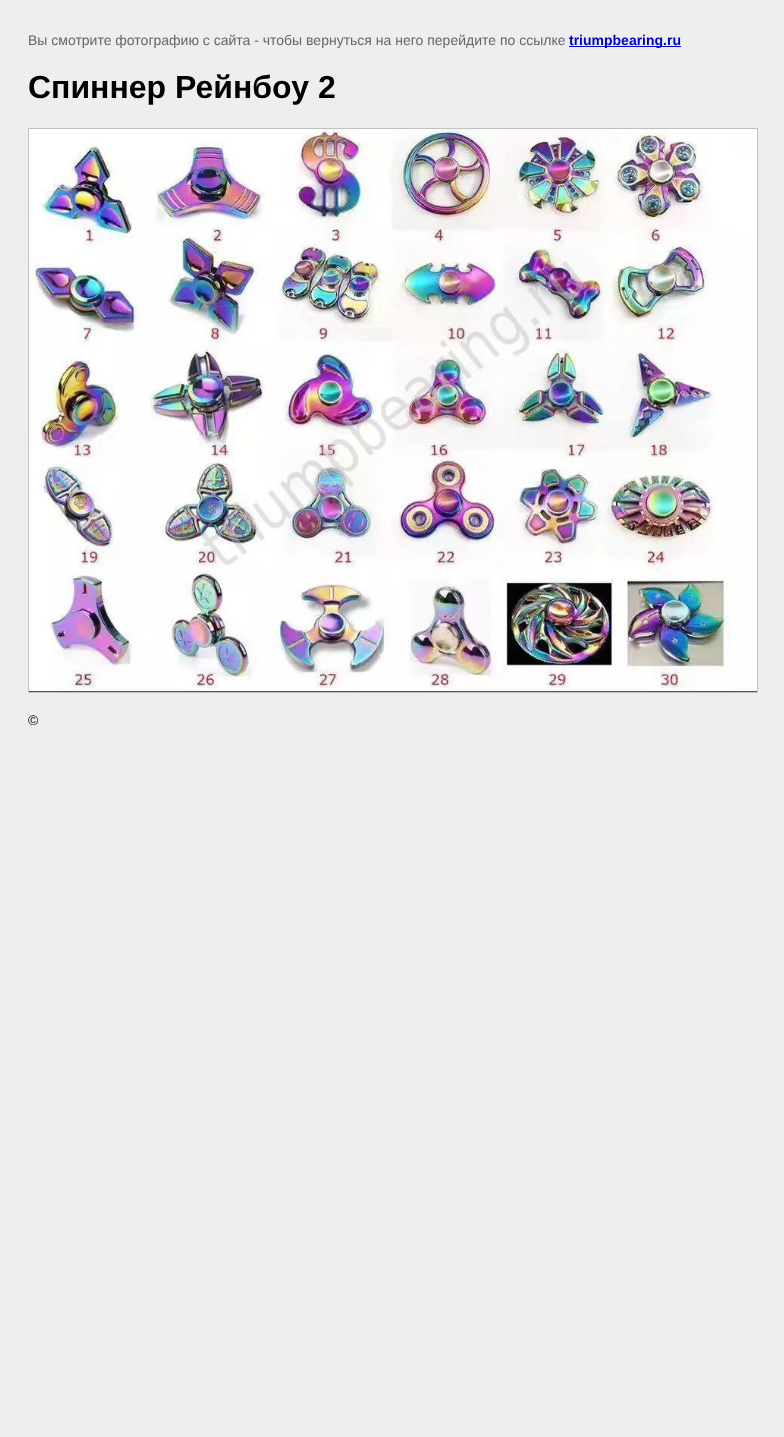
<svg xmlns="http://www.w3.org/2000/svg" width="784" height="1437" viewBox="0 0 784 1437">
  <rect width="100%" height="100%" fill="#eee"/>
  <path d="M569 46h112v1H569z" fill="#00c"/>
  <path d="M28.5 128.5h729v564H28.5z" fill="none" stroke="#c0c0c0"/>
  <image x="29" y="129" width="728" height="563" href="img/1.png"/>
  <text x="28" y="45" font-family="Liberation Sans" font-size="14" fill="#666">Вы смотрите фотографию с сайта - чтобы вернуться на него перейдите по ссылке</text>
  <text x="569" y="45" font-family="Liberation Sans" font-size="14" font-weight="bold" fill="#00c">triumpbearing.ru</text>
  <text x="28" y="98" font-family="Liberation Sans" font-size="32" font-weight="bold" fill="#000">Спиннер Рейнбоу 2</text>
  <text x="28" y="725" font-family="Liberation Sans" font-size="14" fill="#000">©</text>
</svg>
